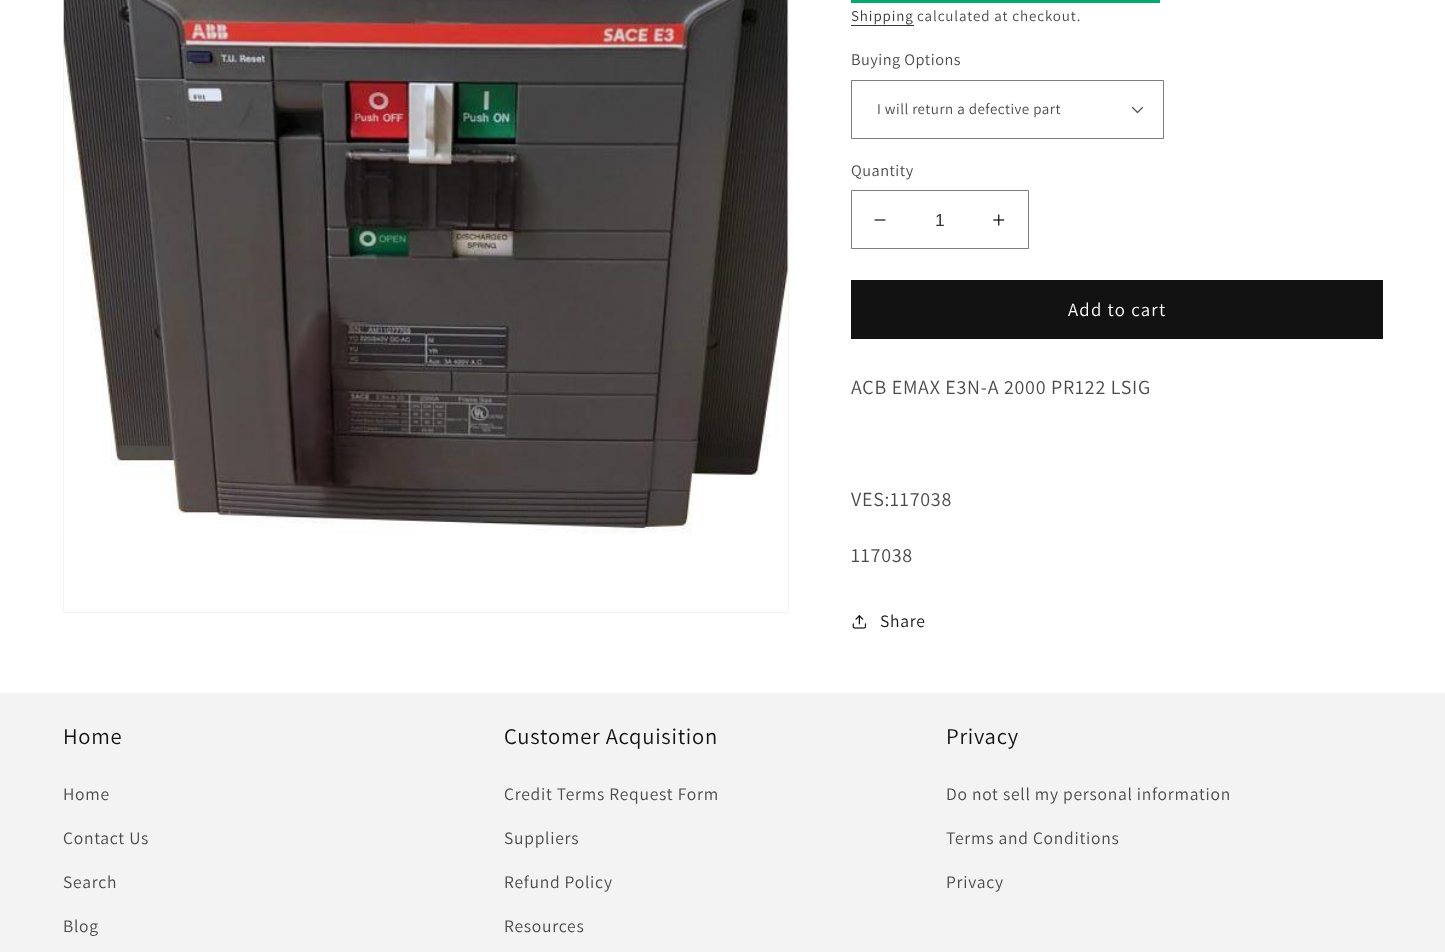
<svg xmlns="http://www.w3.org/2000/svg" width="1445" height="952" viewBox="0 0 1445 952">
  <rect width="100%" height="100%" fill="#fff"/>
  <path d="M63.5 -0.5h725v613H63.5z" fill="none" stroke="#f3f3f3"/>
  <image x="63" y="0" width="725" height="534" href="img/1.png"/>
  <path d="M851 0h309v3H851z" fill="#04aa6d"/>
  <path d="M851 25h63v1H851z" fill="#363636"/>
  <image x="1131" y="106" width="13" height="8" href="img/2.png"/>
  <path d="M851.5 80.5h312v58H851.5z" fill="none" stroke="#7d7d7d"/>
  <image x="874" y="219" width="12" height="2" href="img/3.png"/>
  <image x="993" y="214" width="12" height="12" href="img/4.png"/>
  <path d="M851.5 190.5h177v58H851.5z" fill="none" stroke="#7d7d7d"/>
  <path d="M851 280h532v59H851z" fill="#121212"/>
  <image x="852" y="615" width="15" height="14" href="img/5.png"/>
  <path d="M0 693h1445v259H0z" fill="#f3f3f3"/>
  <text x="851" y="21" font-family="Assistant" font-size="15" letter-spacing="0.9" fill="#363636">Shipping</text>
  <text x="917" y="21" font-family="Assistant" font-size="15" letter-spacing="0.9" fill="#4a4a4a">calculated at checkout.</text>
  <text x="851" y="65" font-family="Assistant" font-size="16.25" letter-spacing="0.5" fill="#4a4a4a">Buying Options</text>
  <text x="877" y="114" font-family="Assistant" font-size="15" letter-spacing="0.5" fill="#4a4a4a">I will return a defective part</text>
  <text x="851" y="176" font-family="Assistant" font-size="16.25" letter-spacing="0.5" fill="#4a4a4a">Quantity</text>
  <text x="935" y="226" font-family="Liberation Sans" font-size="17.5" fill="#363636">1</text>
  <text x="1068" y="316" font-family="Assistant" font-size="18.75" letter-spacing="1.25" fill="#fff">Add to cart</text>
  <g font-family="Assistant" font-size="20" letter-spacing="0.75" fill="#4a4a4a">
    <text x="851" y="394">ACB EMAX E3N-A 2000 PR122 LSIG</text>
    <text x="851" y="506">VES:117038</text>
    <text x="851" y="562">117038</text>
  </g>
  <text x="880" y="627" font-family="Assistant" font-size="17.5" letter-spacing="0.75" fill="#121212">Share</text>
  <text x="63" y="744" font-family="Assistant" font-size="22.5" letter-spacing="0.75" fill="#121212">Home</text>
  <g font-family="Assistant" font-size="17.5" letter-spacing="0.75" fill="#4a4a4a">
    <text x="63" y="800">Home</text>
    <text x="63" y="844">Contact Us</text>
    <text x="63" y="888">Search</text>
    <text x="63" y="932">Blog</text>
  </g>
  <text x="504" y="744" font-family="Assistant" font-size="22.5" letter-spacing="0.75" fill="#121212">Customer Acquisition</text>
  <g font-family="Assistant" font-size="17.5" letter-spacing="0.75" fill="#4a4a4a">
    <text x="504" y="800">Credit Terms Request Form</text>
    <text x="504" y="844">Suppliers</text>
    <text x="504" y="888">Refund Policy</text>
    <text x="504" y="932">Resources</text>
  </g>
  <text x="946" y="744" font-family="Assistant" font-size="22.5" letter-spacing="0.75" fill="#121212">Privacy</text>
  <g font-family="Assistant" font-size="17.5" letter-spacing="0.75" fill="#4a4a4a">
    <text x="946" y="800">Do not sell my personal information</text>
    <text x="946" y="844">Terms and Conditions</text>
    <text x="946" y="888">Privacy</text>
  </g>
</svg>
